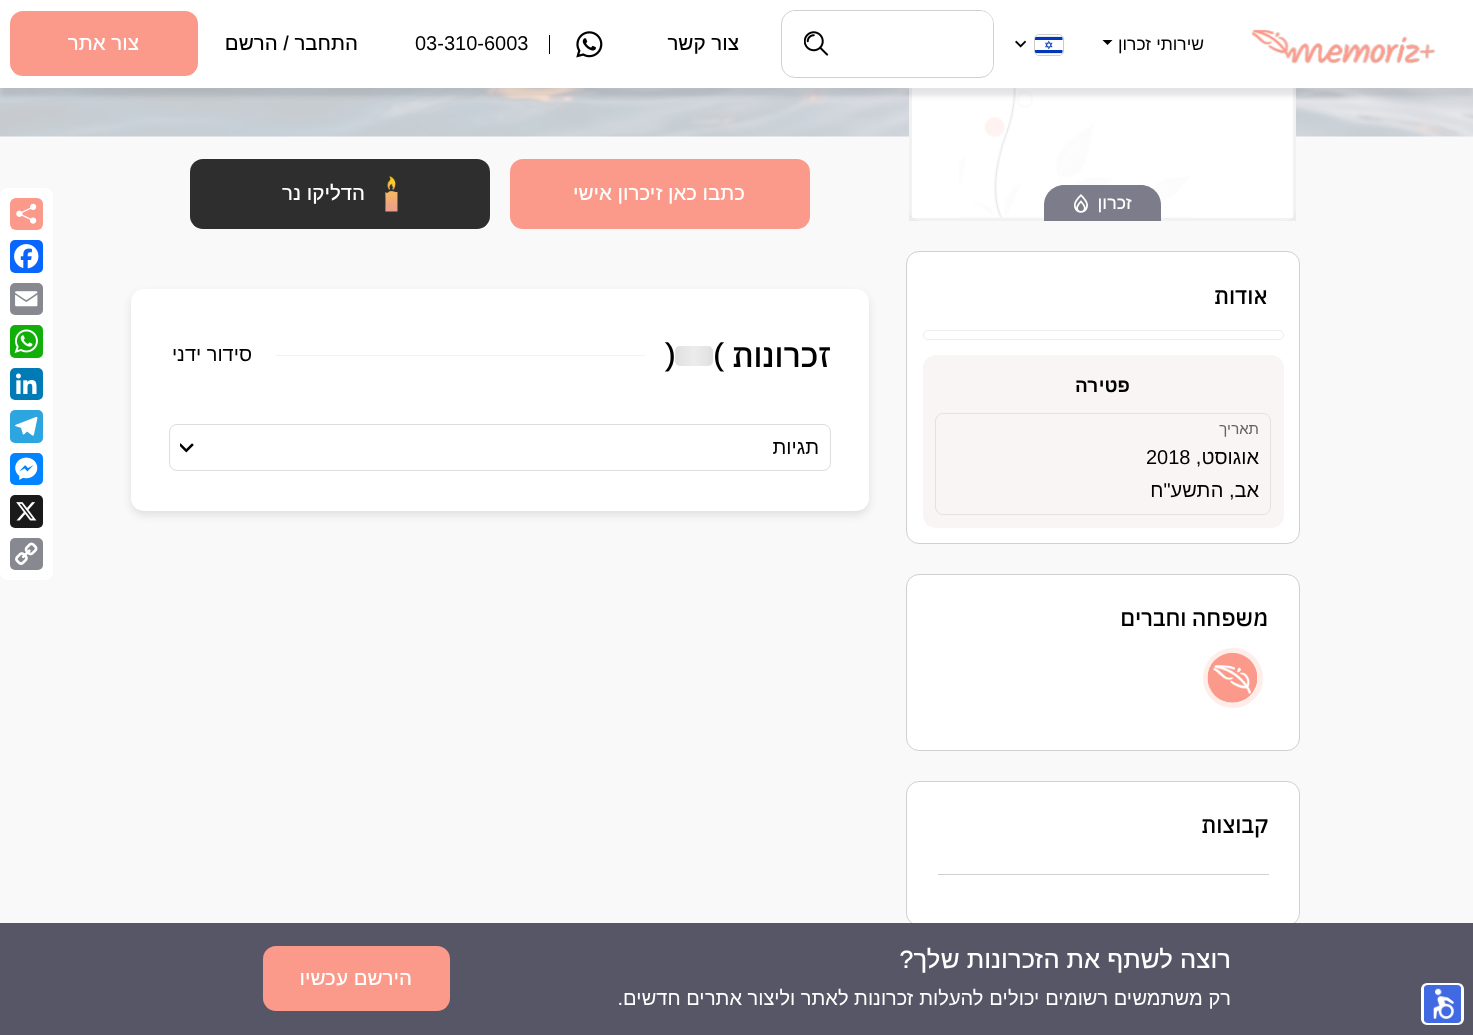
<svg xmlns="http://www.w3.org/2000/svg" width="1473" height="1035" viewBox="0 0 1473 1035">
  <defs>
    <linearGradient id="g1" gradientUnits="userSpaceOnUse" x1="675" y1="356" x2="713" y2="356"><stop offset="0" stop-color="#fff" stop-opacity="0"/><stop offset="0.5" stop-color="#fff" stop-opacity="0.4"/><stop offset="1" stop-color="#fff" stop-opacity="0"/></linearGradient>
  </defs>
  <rect width="100%" height="100%" fill="#f9f9f9"/>
  <rect x="906.5" y="781.5" width="393" height="144" rx="12.5" fill="#fff" stroke="#d1d0d0"/>
  <path d="M0 923h1473v112H0z" fill="#565666"/>
  <rect x="1422.5" y="984.5" width="40" height="39" rx="4.5" fill="none" stroke="#fff" stroke-width="3"/>
  <rect x="1424" y="985" width="37" height="38" rx="4" fill="#4169e1"/>
  <image x="1433" y="988" width="21" height="31" href="img/1.png"/>
  <image x="0" y="88" width="1473" height="49" href="img/7.png"/>
  <rect x="909" y="-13" width="387" height="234" rx="13" fill="#fff"/>
  <path d="M910.5 -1.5h384v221H910.5z" fill="none" stroke="#0000000d" stroke-width="3"/>
  <image x="959" y="88" width="232" height="130" href="img/8.png"/>
  <path d="M0 9h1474v87H0z" fill="#2f2e4121" filter="blur(2.5px)"/>
  <path d="M0 0h1473v88H0z" fill="#fff"/>
  <image x="1251" y="29" width="185" height="35" href="img/2.png"/>
  <path d="M1102.5 40H1112.5L1107.5 45Z" fill="#000"/>
  <rect x="1034.5" y="34.5" width="29" height="21" rx="4.5" fill="none" stroke="#ccc"/>
  <image x="1035" y="35" width="28" height="20" href="img/3.png"/>
  <image x="1015" y="40" width="11" height="8" href="img/4.png"/>
  <rect x="781.5" y="10.5" width="212" height="67" rx="13.5" fill="none" stroke="#d1d0d0"/>
  <rect x="783" y="11" width="210" height="65" rx="13" fill="#fff"/>
  <image x="804" y="31" width="25" height="25" href="img/5.png"/>
  <image x="576" y="31" width="27" height="27" href="img/6.png"/>
  <path d="M549 35h1v19H549z" fill="#000"/>
  <rect x="10" y="11" width="188" height="65" rx="13" fill="#fb9a8a"/>
  <path d="M1064 185H1141C1152 185 1161 194 1161 205V221H1044V205C1044 194 1053 185 1064 185Z" fill="#7d7c8a"/>
  <image x="1074" y="194" width="14" height="19" href="img/9.png"/>
  <rect x="906.5" y="251.5" width="393" height="292" rx="12.5" fill="#fff" stroke="#d1d0d0"/>
  <rect x="923.5" y="330.5" width="360" height="9" rx="4.5" fill="none" stroke="#ededed"/>
  <rect x="923" y="355" width="361" height="173" rx="13" fill="#f8f5f4"/>
  <rect x="935.5" y="413.5" width="335" height="101" rx="7.5" fill="none" stroke="#e4e2e1"/>
  <rect x="906.5" y="574.5" width="393" height="176" rx="12.5" fill="#fff" stroke="#d1d0d0"/>
  <circle cx="1233" cy="678" r="27.5" fill="none" stroke="#ffedea" stroke-width="5"/>
  <image x="1207" y="652" width="51" height="51" href="img/10.png"/>
  <path d="M938 874h331v1H938z" fill="#d1d0d0"/>
  <rect x="510" y="159" width="300" height="70" rx="13" fill="#fb9a8a"/>
  <rect x="190" y="159" width="300" height="70" rx="13" fill="#2e2e2e"/>
  <image x="385" y="176" width="13" height="36" href="img/11.png"/>
  <rect x="131" y="293" width="738" height="222" rx="13" fill="#0000001a" filter="blur(4.5px)"/>
  <rect x="131" y="289" width="738" height="222" rx="13" fill="#fff"/>
  <rect x="675" y="346" width="38" height="20" rx="5" fill="#e0e0e0"/>
  <path d="M679 346h30v20H679z" fill="url(#g1)"/>
  <path d="M276 355h369v1H276z" fill="#f2f2f2"/>
  <rect x="169.5" y="424.5" width="661" height="46" rx="7.5" fill="none" stroke="#ddd"/>
  <image x="180" y="443" width="14" height="10" href="img/12.png"/>
  <rect x="263" y="946" width="187" height="65" rx="13" fill="#fb9a8a"/>
  <rect y="188" width="53" height="392" rx="8" fill="#fff"/>
  <rect x="10" y="198" width="33" height="32" rx="6" fill="#fb9a8a"/>
  <image x="16" y="203" width="21" height="21" href="img/13.png"/>
  <rect x="10" y="240" width="33" height="33" rx="5" fill="#0866ff"/>
  <image x="14" y="244" width="25" height="25" href="img/14.png"/>
  <rect x="10" y="283" width="33" height="32" rx="5" fill="#888990"/>
  <image x="15" y="291" width="23" height="16" href="img/15.png"/>
  <rect x="10" y="325" width="33" height="33" rx="5" fill="#12af0a"/>
  <image x="14" y="329" width="24" height="24" href="img/16.png"/>
  <rect x="10" y="368" width="33" height="32" rx="5" fill="#007bb5"/>
  <image x="16" y="373" width="21" height="21" href="img/17.png"/>
  <rect x="10" y="410" width="33" height="33" rx="5" fill="#2ca5e0"/>
  <image x="15" y="416" width="23" height="20" href="img/18.png"/>
  <rect x="10" y="453" width="33" height="32" rx="5" fill="#0084ff"/>
  <image x="15" y="457" width="23" height="23" href="img/19.png"/>
  <rect x="10" y="495" width="33" height="33" rx="5" fill="#1a1a1a"/>
  <image x="16" y="502" width="21" height="19" href="img/20.png"/>
  <rect x="10" y="538" width="33" height="32" rx="5" fill="#888990"/>
  <image x="15" y="542" width="23" height="23" href="img/21.png"/>
  <text x="1204" y="50" font-family="Arimo" font-size="17.5" direction="rtl" fill="#000">שירותי זכרון</text>
  <text x="739" y="50" font-family="Arimo" font-size="20" font-weight="500" direction="rtl" fill="#000">צור קשר</text>
  <text x="415" y="50" font-family="Arimo" font-size="20" fill="#000">03-310-6003</text>
  <text x="358" y="50" font-family="Arimo" font-size="20" font-weight="500" direction="rtl" fill="#000">התחבר / הרשם</text>
  <text x="139" y="50" font-family="Arimo" font-size="20" font-weight="500" direction="rtl" fill="#fff">צור אתר</text>
  <text x="1132" y="209" font-family="Arimo" font-size="17.5" font-weight="500" direction="rtl" fill="#fff">זכרון</text>
  <text x="1268" y="304" font-family="IBM Plex Sans Hebrew" font-size="22.5" font-weight="500" direction="rtl" fill="#000">אודות</text>
  <text x="1130" y="392" font-family="Arimo" font-size="19" font-weight="bold" direction="rtl" fill="#000">פטירה</text>
  <text x="1259" y="434" font-family="Arimo" font-size="15" direction="rtl" fill="#636262">תאריך</text>
  <text x="1259" y="464" font-family="Arimo" font-size="20" direction="rtl" fill="#000">אוגוסט,</text>
  <text x="1146" y="464" font-family="Arimo" font-size="20" fill="#000">2018</text>
  <text x="1259" y="497" font-family="Arimo" font-size="20" direction="rtl" fill="#000">אב, התשע"ח</text>
  <g font-family="IBM Plex Sans Hebrew" font-size="22.5" font-weight="500" direction="rtl" fill="#000">
    <text x="1268" y="626">משפחה וחברים</text>
    <text x="1268" y="833">קבוצות</text>
  </g>
  <g font-family="Arimo" font-size="20" font-weight="500" direction="rtl" fill="#fff">
    <text x="745" y="200">כתבו כאן זיכרון אישי</text>
    <text x="365" y="200">הדליקו נר</text>
  </g>
  <text x="831" y="367" font-family="IBM Plex Sans Hebrew" font-size="32.5" font-weight="500" direction="rtl" fill="#000">זכרונות</text>
  <g font-family="IBM Plex Sans Hebrew" font-size="32.5" font-weight="500" fill="#000">
    <text x="713" y="367">(</text>
    <text x="665" y="367">)</text>
  </g>
  <g font-family="Arimo" font-size="20" direction="rtl" fill="#000">
    <text x="252" y="361">סידור ידני</text>
    <text x="819" y="454">תגיות</text>
  </g>
  <text x="1231" y="968" font-family="Arimo" font-size="25" font-weight="500" direction="rtl" fill="#fff">רוצה לשתף את הזכרונות שלך?</text>
  <text x="1231" y="1005" font-family="Arimo" font-size="20" direction="rtl" fill="#fff">רק משתמשים רשומים יכולים להעלות זכרונות לאתר וליצור אתרים חדשים.</text>
  <text x="412" y="985" font-family="Arimo" font-size="20" font-weight="500" direction="rtl" fill="#fff">הירשם עכשיו</text>
</svg>
